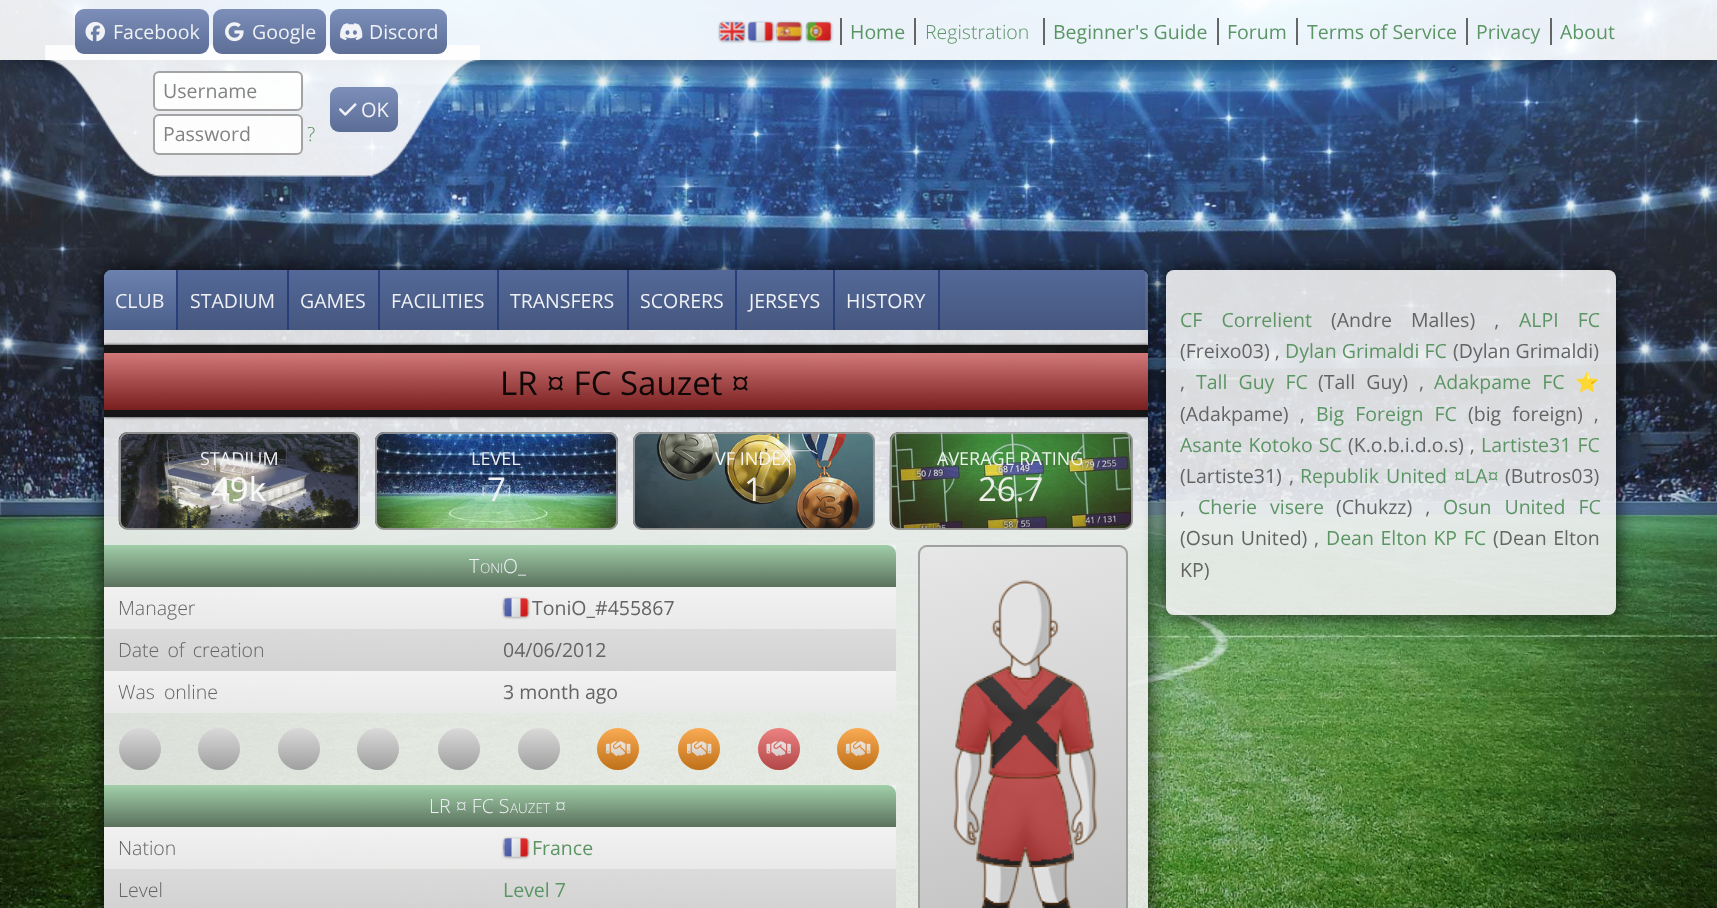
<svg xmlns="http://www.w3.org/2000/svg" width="1717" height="908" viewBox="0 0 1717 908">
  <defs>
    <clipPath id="clip1"><path d="M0 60h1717v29H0z"/></clipPath>
    <linearGradient id="g1" gradientUnits="userSpaceOnUse" x1="142" y1="9" x2="142" y2="54"><stop offset="0" stop-color="#7084b2" stop-opacity="0.9"/><stop offset="1" stop-color="#4b5f8b" stop-opacity="0.9"/></linearGradient>
    <linearGradient id="g2" gradientUnits="userSpaceOnUse" x1="269" y1="9" x2="269" y2="54"><stop offset="0" stop-color="#7084b2" stop-opacity="0.9"/><stop offset="1" stop-color="#4b5f8b" stop-opacity="0.9"/></linearGradient>
    <linearGradient id="g3" gradientUnits="userSpaceOnUse" x1="389" y1="9" x2="389" y2="54"><stop offset="0" stop-color="#7084b2" stop-opacity="0.9"/><stop offset="1" stop-color="#4b5f8b" stop-opacity="0.9"/></linearGradient>
    <linearGradient id="g4" gradientUnits="userSpaceOnUse" x1="364" y1="87" x2="364" y2="132"><stop offset="0" stop-color="#7084b2" stop-opacity="0.9"/><stop offset="1" stop-color="#4b5f8b" stop-opacity="0.9"/></linearGradient>
    <clipPath id="clip2"><path d="M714 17H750V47H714ZM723 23H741C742.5 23 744 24.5 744 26V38C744 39.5 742.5 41 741 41H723C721.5 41 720 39.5 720 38V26C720 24.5 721.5 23 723 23Z" clip-rule="evenodd"/></clipPath>
    <linearGradient id="g5" gradientUnits="userSpaceOnUse" x1="743" y1="42" x2="721" y2="21"><stop offset="0" stop-color="#000" stop-opacity="0.18"/><stop offset="1" stop-color="#fff" stop-opacity="0.18"/></linearGradient>
    <clipPath id="clip3"><path d="M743 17H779V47H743ZM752 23H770C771.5 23 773 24.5 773 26V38C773 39.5 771.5 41 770 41H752C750.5 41 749 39.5 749 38V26C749 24.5 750.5 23 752 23Z" clip-rule="evenodd"/></clipPath>
    <linearGradient id="g6" gradientUnits="userSpaceOnUse" x1="771" y1="42" x2="750" y2="21"><stop offset="0" stop-color="#000" stop-opacity="0.18"/><stop offset="1" stop-color="#fff" stop-opacity="0.18"/></linearGradient>
    <clipPath id="clip4"><path d="M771 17H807V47H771ZM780 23H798C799.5 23 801 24.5 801 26V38C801 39.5 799.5 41 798 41H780C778.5 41 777 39.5 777 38V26C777 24.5 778.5 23 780 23Z" clip-rule="evenodd"/></clipPath>
    <linearGradient id="g7" gradientUnits="userSpaceOnUse" x1="800" y1="42" x2="778" y2="21"><stop offset="0" stop-color="#000" stop-opacity="0.18"/><stop offset="1" stop-color="#fff" stop-opacity="0.18"/></linearGradient>
    <clipPath id="clip5"><path d="M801 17H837V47H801ZM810 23H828C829.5 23 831 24.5 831 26V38C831 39.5 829.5 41 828 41H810C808.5 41 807 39.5 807 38V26C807 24.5 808.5 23 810 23Z" clip-rule="evenodd"/></clipPath>
    <linearGradient id="g8" gradientUnits="userSpaceOnUse" x1="830" y1="42" x2="808" y2="21"><stop offset="0" stop-color="#000" stop-opacity="0.18"/><stop offset="1" stop-color="#fff" stop-opacity="0.18"/></linearGradient>
    <clipPath id="clip6"><path d="M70 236H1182V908H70ZM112 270H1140C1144.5 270 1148 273.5 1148 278V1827C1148 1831.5 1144.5 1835 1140 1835H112C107.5 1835 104 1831.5 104 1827V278C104 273.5 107.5 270 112 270Z" clip-rule="evenodd"/></clipPath>
    <linearGradient id="g9" gradientUnits="userSpaceOnUse" x1="626" y1="270" x2="626" y2="330"><stop offset="0" stop-color="#526798" stop-opacity="0.9"/><stop offset="1" stop-color="#44567e" stop-opacity="0.9"/></linearGradient>
    <clipPath id="clip7"><rect x="104" y="270" width="1044" height="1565" rx="8"/></clipPath>
    <linearGradient id="g10" gradientUnits="userSpaceOnUse" x1="624" y1="270" x2="624" y2="330"><stop offset="0" stop-color="#526798" stop-opacity="0.9"/><stop offset="1" stop-color="#44567e" stop-opacity="0.9"/></linearGradient>
    <linearGradient id="g11" gradientUnits="userSpaceOnUse" x1="140" y1="270" x2="140" y2="330"><stop offset="0" stop-color="#7084b2" stop-opacity="0.9"/><stop offset="1" stop-color="#4b5f8b" stop-opacity="0.9"/></linearGradient>
    <clipPath id="clip8"><rect x="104" y="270" width="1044" height="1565" rx="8"/></clipPath>
    <clipPath id="clip9"><path d="M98 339H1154V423H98ZM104 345H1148V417H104Z" clip-rule="evenodd"/></clipPath>
    <clipPath id="clip10"><path d="M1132 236H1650V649H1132ZM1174 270H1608C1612.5 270 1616 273.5 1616 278V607C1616 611.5 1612.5 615 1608 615H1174C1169.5 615 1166 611.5 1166 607V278C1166 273.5 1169.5 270 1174 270Z" clip-rule="evenodd"/></clipPath>
    <linearGradient id="g12" gradientUnits="userSpaceOnUse" x1="626" y1="352" x2="626" y2="410"><stop offset="0" stop-color="#fff" stop-opacity="0.36"/><stop offset="1" stop-color="#000" stop-opacity="0.36"/></linearGradient>
    <linearGradient id="g13" gradientUnits="userSpaceOnUse" x1="500" y1="544" x2="500" y2="587"><stop offset="0" stop-color="#f3f3f3" stop-opacity="0.9"/><stop offset="1" stop-color="#e9e9e9" stop-opacity="0.9"/></linearGradient>
    <linearGradient id="g14" gradientUnits="userSpaceOnUse" x1="500" y1="544" x2="500" y2="587"><stop offset="0" stop-color="#99cca2" stop-opacity="0.9"/><stop offset="1" stop-color="#4b634d" stop-opacity="0.9"/></linearGradient>
    <linearGradient id="g15" gradientUnits="userSpaceOnUse" x1="500" y1="586" x2="500" y2="629"><stop offset="0" stop-color="#f3f3f3" stop-opacity="0.9"/><stop offset="1" stop-color="#e9e9e9" stop-opacity="0.9"/></linearGradient>
    <clipPath id="clip11"><path d="M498 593H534V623H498ZM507 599H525C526.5 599 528 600.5 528 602V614C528 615.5 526.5 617 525 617H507C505.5 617 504 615.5 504 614V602C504 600.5 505.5 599 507 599Z" clip-rule="evenodd"/></clipPath>
    <linearGradient id="g16" gradientUnits="userSpaceOnUse" x1="527" y1="618" x2="505" y2="597"><stop offset="0" stop-color="#000" stop-opacity="0.18"/><stop offset="1" stop-color="#fff" stop-opacity="0.18"/></linearGradient>
    <linearGradient id="g17" gradientUnits="userSpaceOnUse" x1="500" y1="628" x2="500" y2="671"><stop offset="0" stop-color="#dadada" stop-opacity="0.9"/><stop offset="1" stop-color="#d0d0d0" stop-opacity="0.9"/></linearGradient>
    <linearGradient id="g18" gradientUnits="userSpaceOnUse" x1="500" y1="670" x2="500" y2="713"><stop offset="0" stop-color="#f3f3f3" stop-opacity="0.9"/><stop offset="1" stop-color="#e9e9e9" stop-opacity="0.9"/></linearGradient>
    <linearGradient id="g19" gradientUnits="userSpaceOnUse" x1="140" y1="728" x2="140" y2="770"><stop offset="0" stop-color="#fff" stop-opacity="0.23"/><stop offset="1" stop-color="#000" stop-opacity="0.23"/></linearGradient>
    <linearGradient id="g20" gradientUnits="userSpaceOnUse" x1="219" y1="728" x2="219" y2="770"><stop offset="0" stop-color="#fff" stop-opacity="0.23"/><stop offset="1" stop-color="#000" stop-opacity="0.23"/></linearGradient>
    <linearGradient id="g21" gradientUnits="userSpaceOnUse" x1="299" y1="728" x2="299" y2="770"><stop offset="0" stop-color="#fff" stop-opacity="0.23"/><stop offset="1" stop-color="#000" stop-opacity="0.23"/></linearGradient>
    <linearGradient id="g22" gradientUnits="userSpaceOnUse" x1="378" y1="728" x2="378" y2="770"><stop offset="0" stop-color="#fff" stop-opacity="0.23"/><stop offset="1" stop-color="#000" stop-opacity="0.23"/></linearGradient>
    <linearGradient id="g23" gradientUnits="userSpaceOnUse" x1="459" y1="728" x2="459" y2="770"><stop offset="0" stop-color="#fff" stop-opacity="0.23"/><stop offset="1" stop-color="#000" stop-opacity="0.23"/></linearGradient>
    <linearGradient id="g24" gradientUnits="userSpaceOnUse" x1="539" y1="728" x2="539" y2="770"><stop offset="0" stop-color="#fff" stop-opacity="0.23"/><stop offset="1" stop-color="#000" stop-opacity="0.23"/></linearGradient>
    <linearGradient id="g25" gradientUnits="userSpaceOnUse" x1="618" y1="728" x2="618" y2="770"><stop offset="0" stop-color="#fff" stop-opacity="0.23"/><stop offset="1" stop-color="#000" stop-opacity="0.23"/></linearGradient>
    <linearGradient id="g26" gradientUnits="userSpaceOnUse" x1="699" y1="728" x2="699" y2="770"><stop offset="0" stop-color="#fff" stop-opacity="0.23"/><stop offset="1" stop-color="#000" stop-opacity="0.23"/></linearGradient>
    <linearGradient id="g27" gradientUnits="userSpaceOnUse" x1="779" y1="728" x2="779" y2="770"><stop offset="0" stop-color="#fff" stop-opacity="0.23"/><stop offset="1" stop-color="#000" stop-opacity="0.23"/></linearGradient>
    <linearGradient id="g28" gradientUnits="userSpaceOnUse" x1="858" y1="728" x2="858" y2="770"><stop offset="0" stop-color="#fff" stop-opacity="0.23"/><stop offset="1" stop-color="#000" stop-opacity="0.23"/></linearGradient>
    <linearGradient id="g29" gradientUnits="userSpaceOnUse" x1="500" y1="785" x2="500" y2="827"><stop offset="0" stop-color="#f3f3f3" stop-opacity="0.9"/><stop offset="1" stop-color="#e9e9e9" stop-opacity="0.9"/></linearGradient>
    <linearGradient id="g30" gradientUnits="userSpaceOnUse" x1="500" y1="785" x2="500" y2="827"><stop offset="0" stop-color="#99cca2" stop-opacity="0.9"/><stop offset="1" stop-color="#4b634d" stop-opacity="0.9"/></linearGradient>
    <linearGradient id="g31" gradientUnits="userSpaceOnUse" x1="500" y1="827" x2="500" y2="869"><stop offset="0" stop-color="#f3f3f3" stop-opacity="0.9"/><stop offset="1" stop-color="#e9e9e9" stop-opacity="0.9"/></linearGradient>
    <clipPath id="clip12"><path d="M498 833H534V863H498ZM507 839H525C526.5 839 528 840.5 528 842V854C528 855.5 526.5 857 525 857H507C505.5 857 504 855.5 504 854V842C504 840.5 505.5 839 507 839Z" clip-rule="evenodd"/></clipPath>
    <linearGradient id="g32" gradientUnits="userSpaceOnUse" x1="527" y1="858" x2="505" y2="837"><stop offset="0" stop-color="#000" stop-opacity="0.18"/><stop offset="1" stop-color="#fff" stop-opacity="0.18"/></linearGradient>
    <linearGradient id="g33" gradientUnits="userSpaceOnUse" x1="500" y1="869" x2="500" y2="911"><stop offset="0" stop-color="#dadada" stop-opacity="0.9"/><stop offset="1" stop-color="#d0d0d0" stop-opacity="0.9"/></linearGradient>
    <clipPath id="clip13"><rect x="918" y="545" width="210" height="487" rx="9"/></clipPath>
    <linearGradient id="g34" gradientUnits="userSpaceOnUse" x1="956" y1="52" x2="1090" y2="556"><stop offset="0" stop-color="#e6e6e6" stop-opacity="0.9"/><stop offset="1" stop-color="#b3b3b3" stop-opacity="0.9"/></linearGradient>
    <linearGradient id="g35" gradientUnits="userSpaceOnUse" x1="749" y1="536" x2="883" y2="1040"><stop offset="0" stop-color="#e6e6e6" stop-opacity="0.9"/><stop offset="1" stop-color="#b3b3b3" stop-opacity="0.9"/></linearGradient>
    <linearGradient id="g36" gradientUnits="userSpaceOnUse" x1="956" y1="536" x2="1090" y2="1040"><stop offset="0" stop-color="#e6e6e6" stop-opacity="0.9"/><stop offset="1" stop-color="#b3b3b3" stop-opacity="0.9"/></linearGradient>
    <linearGradient id="g37" gradientUnits="userSpaceOnUse" x1="1163" y1="536" x2="1297" y2="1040"><stop offset="0" stop-color="#e6e6e6" stop-opacity="0.9"/><stop offset="1" stop-color="#b3b3b3" stop-opacity="0.9"/></linearGradient>
  </defs>
  <rect width="100%" height="100%" fill="#fff"/>
  <image x="0" y="0" width="1717" height="908" href="img/1.png"/>
  <g clip-path="url(#clip1)">
    <path d="M0 0h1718v60H0z" fill="#000000b8" filter="blur(15px)"/>
  </g>
  <path d="M0 0h1717v60H0z" fill="#ffffffe6"/>
  <image x="45" y="45" width="435" height="132" href="img/2.png"/>
  <rect x="75" y="9" width="134" height="45" rx="9" fill="url(#g1)"/>
  <image x="85" y="21" width="20" height="21" href="img/3.png"/>
  <rect x="213" y="9" width="113" height="45" rx="9" fill="url(#g2)"/>
  <image x="225" y="22" width="19" height="20" href="img/4.png"/>
  <rect x="330" y="9" width="117" height="45" rx="9" fill="url(#g3)"/>
  <image x="340" y="23" width="23" height="18" href="img/5.png"/>
  <rect x="153" y="71" width="150" height="40" rx="6" fill="#ffffffe6"/>
  <rect x="154" y="72" width="148" height="38" rx="5" fill="none" stroke="#999999e6" stroke-width="2"/>
  <rect x="153" y="114" width="150" height="41" rx="6" fill="#ffffffe6"/>
  <rect x="154" y="115" width="148" height="39" rx="5" fill="none" stroke="#999999e6" stroke-width="2"/>
  <rect x="330" y="87" width="68" height="45" rx="9" fill="url(#g4)"/>
  <image x="339" y="103" width="18" height="13" href="img/6.png"/>
  <path d="M840 18h2v27H840z" fill="#646565"/>
  <g clip-path="url(#clip2)">
    <rect x="720" y="23" width="24" height="18" rx="3" fill="#00000073" filter="blur(1.5px)"/>
  </g>
  <image x="719" y="22" width="26" height="19" href="img/7.png"/>
  <rect x="720" y="23" width="24" height="18" rx="3" fill="url(#g5)"/>
  <g clip-path="url(#clip3)">
    <rect x="749" y="23" width="24" height="18" rx="3" fill="#00000073" filter="blur(1.5px)"/>
  </g>
  <image x="748" y="22" width="25" height="19" href="img/8.png"/>
  <rect x="749" y="23" width="24" height="18" rx="3" fill="url(#g6)"/>
  <g clip-path="url(#clip4)">
    <rect x="777" y="23" width="24" height="18" rx="3" fill="#00000073" filter="blur(1.5px)"/>
  </g>
  <image x="776" y="22" width="26" height="19" href="img/9.png"/>
  <rect x="777" y="23" width="24" height="18" rx="3" fill="url(#g7)"/>
  <g clip-path="url(#clip5)">
    <rect x="807" y="23" width="24" height="18" rx="3" fill="#00000073" filter="blur(1.5px)"/>
  </g>
  <image x="806" y="22" width="25" height="19" href="img/10.png"/>
  <rect x="807" y="23" width="24" height="18" rx="3" fill="url(#g8)"/>
  <path d="M914 18h2v27H914z" fill="#555555e6"/>
  <path d="M1043 18h2v27H1043z" fill="#646566"/>
  <path d="M1217 18h2v27H1217z" fill="#555555e6"/>
  <path d="M1296 18h2v27H1296z" fill="#555555e6"/>
  <path d="M1466 18h2v27H1466z" fill="#646565"/>
  <path d="M1550 18h2v27H1550z" fill="#646565"/>
  <g clip-path="url(#clip6)">
    <rect x="104" y="270" width="1044" height="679" rx="8" fill="#000000e6" filter="blur(11px)"/>
  </g>
  <rect x="104" y="270" width="1044" height="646" rx="8" fill="#f0f0f0e6"/>
  <path d="M112 270H1140C1144.5 270 1148 273.5 1148 278V330H104V278C104 273.5 107.5 270 112 270Z" fill="url(#g9)"/>
  <g clip-path="url(#clip7)">
    <path d="M112 270H1145V330H104V278C104 273.5 107.5 270 112 270Z" fill="url(#g10)"/>
  </g>
  <path d="M112 270H177V330H104V278C104 273.5 107.5 270 112 270Z" fill="url(#g11)"/>
  <path d="M176 270h2v60H176z" fill="#253b78e6"/>
  <path d="M287 270h2v60H287z" fill="#253b78e6"/>
  <path d="M378 270h2v60H378z" fill="#253b78e6"/>
  <path d="M497 270h2v60H497z" fill="#253b78e6"/>
  <path d="M627 270h2v60H627z" fill="#253b78e6"/>
  <path d="M735 270h2v60H735z" fill="#253b78e6"/>
  <path d="M833 270h2v60H833z" fill="#253b78e6"/>
  <path d="M938 270h2v60H938z" fill="#253b78e6"/>
  <g clip-path="url(#clip8)">
    <g clip-path="url(#clip9)">
      <path d="M104 345h1044v72H104z" fill="#000000e6" filter="blur(1.5px)"/>
    </g>
  </g>
  <g clip-path="url(#clip10)">
    <rect x="1166" y="270" width="450" height="345" rx="8" fill="#000000e6" filter="blur(11px)"/>
  </g>
  <path d="M104 353h1044v57H104z" fill="#b71c1ce6"/>
  <path d="M104 353h1044v57H104z" fill="url(#g12)"/>
  <path d="M104 345h1044v8H104z" fill="#000000e6"/>
  <path d="M104 410h1044v7H104z" fill="#000000e6"/>
  <rect x="119" y="432" width="241" height="98" rx="9" fill="#cccccce6"/>
  <image x="118" y="432" width="242" height="98" href="img/11.png"/>
  <rect x="120" y="433" width="239" height="96" rx="8" fill="none" stroke="#999999e6" stroke-width="2"/>
  <rect x="375" y="432" width="243" height="98" rx="9" fill="#cccccce6"/>
  <image x="375" y="432" width="243" height="98" href="img/12.png"/>
  <rect x="376" y="433" width="241" height="96" rx="8" fill="none" stroke="#999999e6" stroke-width="2"/>
  <rect x="633" y="432" width="242" height="98" rx="9" fill="#cccccce6"/>
  <image x="633" y="432" width="242" height="98" href="img/13.png"/>
  <rect x="634" y="433" width="240" height="96" rx="8" fill="none" stroke="#999999e6" stroke-width="2"/>
  <rect x="890" y="432" width="243" height="98" rx="9" fill="#cccccce6"/>
  <image x="889" y="432" width="244" height="98" href="img/14.png"/>
  <rect x="891" y="433" width="241" height="96" rx="8" fill="none" stroke="#999999e6" stroke-width="2"/>
  <path d="M104 545h792v42H104z" fill="url(#g13)"/>
  <path d="M104 545H887C892 545 896 549 896 554V587H104Z" fill="url(#g14)"/>
  <path d="M104 587h792v42H104z" fill="url(#g15)"/>
  <g clip-path="url(#clip11)">
    <rect x="504" y="599" width="24" height="18" rx="3" fill="#00000073" filter="blur(1.5px)"/>
  </g>
  <image x="503" y="598" width="26" height="19" href="img/15.png"/>
  <rect x="504" y="599" width="24" height="18" rx="3" fill="url(#g16)"/>
  <path d="M104 629h792v42H104z" fill="url(#g17)"/>
  <path d="M104 671h792v42H104z" fill="url(#g18)"/>
  <circle cx="140" cy="749" r="21" fill="#cccccce6"/>
  <circle cx="140" cy="749" r="21" fill="url(#g19)"/>
  <circle cx="219" cy="749" r="21" fill="#cccccce6"/>
  <circle cx="219" cy="749" r="21" fill="url(#g20)"/>
  <circle cx="299" cy="749" r="21" fill="#cccccce6"/>
  <circle cx="299" cy="749" r="21" fill="url(#g21)"/>
  <circle cx="378" cy="749" r="21" fill="#cccccce6"/>
  <circle cx="378" cy="749" r="21" fill="url(#g22)"/>
  <circle cx="459" cy="749" r="21" fill="#cccccce6"/>
  <circle cx="459" cy="749" r="21" fill="url(#g23)"/>
  <circle cx="539" cy="749" r="21" fill="#cccccce6"/>
  <circle cx="539" cy="749" r="21" fill="url(#g24)"/>
  <circle cx="618" cy="749" r="21" fill="#fa880be6"/>
  <image x="606" y="741" width="25" height="15" href="img/16.png"/>
  <circle cx="618" cy="749" r="21" fill="url(#g25)"/>
  <circle cx="699" cy="749" r="21" fill="#fa880be6"/>
  <image x="687" y="741" width="25" height="15" href="img/17.png"/>
  <circle cx="699" cy="749" r="21" fill="url(#g26)"/>
  <circle cx="779" cy="749" r="21" fill="#e64c4ce6"/>
  <image x="766" y="741" width="25" height="15" href="img/18.png"/>
  <circle cx="779" cy="749" r="21" fill="url(#g27)"/>
  <circle cx="858" cy="749" r="21" fill="#fa880be6"/>
  <image x="846" y="741" width="25" height="15" href="img/19.png"/>
  <circle cx="858" cy="749" r="21" fill="url(#g28)"/>
  <path d="M104 785h792v42H104z" fill="url(#g29)"/>
  <path d="M104 785H887C892 785 896 789 896 794V827H104Z" fill="url(#g30)"/>
  <path d="M104 827h792v42H104z" fill="url(#g31)"/>
  <g clip-path="url(#clip12)">
    <rect x="504" y="839" width="24" height="18" rx="3" fill="#00000073" filter="blur(1.5px)"/>
  </g>
  <image x="503" y="838" width="26" height="19" href="img/20.png"/>
  <rect x="504" y="839" width="24" height="18" rx="3" fill="url(#g32)"/>
  <path d="M104 869h792v39H104z" fill="url(#g33)"/>
  <g clip-path="url(#clip13)">
    <path d="M920 545h207v1H920z" fill="url(#g34)"/>
    <path d="M918 546h2v362H918z" fill="url(#g35)"/>
    <path d="M920 546h207v362H920z" fill="url(#g36)"/>
    <path d="M1127 546h1v362H1127z" fill="url(#g37)"/>
  </g>
  <rect x="919" y="546" width="208" height="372" rx="8" fill="none" stroke="#999999e6" stroke-width="2"/>
  <image x="953" y="580" width="144" height="328" href="img/21.png"/>
  <image x="977" y="772" width="96" height="95" href="img/24.png"/>
  <image x="976" y="771" width="98" height="96" href="img/25.png"/>
  <image x="956" y="667" width="137" height="111" href="img/22.png"/>
  <image x="955" y="666" width="139" height="113" href="img/23.png"/>
  <image x="982" y="898" width="88" height="10" href="img/26.png"/>
  <image x="981" y="897" width="91" height="11" href="img/27.png"/>
  <rect x="1166" y="270" width="450" height="345" rx="8" fill="#f0f0f0e6"/>
  <g font-family="Open Sans" font-size="19.5" fill="#eff1f5">
    <text x="113" y="39">Facebook</text>
    <text x="252" y="39">Google</text>
    <text x="369" y="39">Discord</text>
  </g>
  <g font-family="Open Sans" font-size="19.5" fill="#838383">
    <text x="163" y="98">Username</text>
    <text x="163" y="141">Password</text>
  </g>
  <text x="307" y="141" font-family="Open Sans" font-size="19.5" font-weight="300" fill="#5b9564">?</text>
  <text x="361" y="117" font-family="Open Sans" font-size="20" fill="#eff1f5">OK</text>
  <text x="850" y="39" font-family="Open Sans" font-size="19.5" fill="#5b9564">Home</text>
  <text x="925" y="39" font-family="Open Sans" font-size="19.5" font-weight="300" fill="#5b9564">Registration</text>
  <g font-family="Open Sans" font-size="19.5" fill="#5b9564">
    <text x="1053" y="39">Beginner's Guide</text>
    <text x="1227" y="39">Forum</text>
    <text x="1307" y="39">Terms of Service</text>
    <text x="1476" y="39">Privacy</text>
    <text x="1560" y="39">About</text>
  </g>
  <g font-family="Open Sans" font-size="19.5" fill="#eff1f5">
    <text x="115" y="308">CLUB</text>
    <text x="190" y="308">STADIUM</text>
    <text x="300" y="308">GAMES</text>
    <text x="391" y="308">FACILITIES</text>
    <text x="510" y="308">TRANSFERS</text>
    <text x="640" y="308">SCORERS</text>
    <text x="749" y="308">JERSEYS</text>
    <text x="846" y="308">HISTORY</text>
  </g>
  <text x="500" y="395" font-family="Open Sans" font-size="33" fill="#100707">LR ¤ FC Sauzet ¤</text>
  <text x="200" y="465" font-family="Open Sans" font-size="18" fill="#eff1f5">STADIUM</text>
  <text x="211" y="501" font-family="Open Sans" font-size="33" fill="#f9f9f8">49k</text>
  <text x="471" y="465" font-family="Open Sans" font-size="18" fill="#e9ecf0">LEVEL</text>
  <text x="487" y="501" font-family="Open Sans" font-size="33" fill="#eff1f5">7</text>
  <text x="715" y="465" font-family="Open Sans" font-size="18" fill="#f8f6f0">VF INDEX</text>
  <text x="744" y="501" font-family="Open Sans" font-size="33" fill="#efede9">1</text>
  <text x="937" y="465" font-family="Open Sans" font-size="18" fill="#edf3ec">AVERAGE RATING</text>
  <text x="978" y="501" font-family="Open Sans" font-size="33" fill="#efede9">26.7</text>
  <text x="469" y="573" font-family="Open Sans" font-size="19.5" font-weight="300" fill="#eff1f5">T</text>
  <text x="480" y="573" font-family="Open Sans" font-size="13.5" font-weight="300" fill="#eff1f5">ONI</text>
  <text x="503" y="573" font-family="Open Sans" font-size="19.5" font-weight="300" fill="#eff1f5">O_</text>
  <text x="118" y="615" font-family="Open Sans" font-size="19.5" font-weight="300" fill="#646464">Manager</text>
  <text x="532" y="615" font-family="Open Sans" font-size="19.5" fill="#646464">ToniO_#455867</text>
  <text x="118" y="657" word-spacing="3" font-family="Open Sans" font-size="19.5" font-weight="300" fill="#646464">Date of creation</text>
  <text x="503" y="657" font-family="Open Sans" font-size="19.5" fill="#646464">04/06/2012</text>
  <text x="118" y="699" word-spacing="4" font-family="Open Sans" font-size="19.5" font-weight="300" fill="#646464">Was online</text>
  <text x="503" y="699" font-family="Open Sans" font-size="19.5" fill="#646464">3 month ago</text>
  <text x="429" y="813" font-family="Open Sans" font-size="19.5" font-weight="300" fill="#eff1f5">LR ¤ FC S</text>
  <text x="510" y="813" font-family="Open Sans" font-size="13.5" font-weight="300" fill="#eff1f5">AUZET</text>
  <text x="555" y="813" font-family="Open Sans" font-size="19.5" font-weight="300" fill="#eff1f5">¤</text>
  <text x="118" y="855" font-family="Open Sans" font-size="19.5" font-weight="300" fill="#646464">Nation</text>
  <text x="532" y="855" font-family="Open Sans" font-size="19.5" fill="#5b9564">France</text>
  <text x="118" y="897" font-family="Open Sans" font-size="19.5" font-weight="300" fill="#646464">Level</text>
  <g font-family="Open Sans" font-size="19.5" fill="#5b9564">
    <text x="503" y="897">Level 7</text>
    <text x="1180" y="327" word-spacing="14">CF Correlient</text>
  </g>
  <text x="1331" y="327" word-spacing="14" font-family="Open Sans" font-size="19.5" fill="#646464">(Andre Malles) ,</text>
  <text x="1519" y="327" word-spacing="14" font-family="Open Sans" font-size="19.5" fill="#5b9564">ALPI FC</text>
  <text x="1180" y="358" font-family="Open Sans" font-size="19.5" fill="#646464">(Freixo03) ,</text>
  <text x="1285" y="358" font-family="Open Sans" font-size="19.5" fill="#5b9564">Dylan Grimaldi FC</text>
  <g font-family="Open Sans" font-size="19.5" fill="#646464">
    <text x="1453" y="358">(Dylan Grimaldi)</text>
    <text x="1180" y="389">,</text>
  </g>
  <text x="1196" y="389" word-spacing="6" font-family="Open Sans" font-size="19.5" fill="#5b9564">Tall Guy FC</text>
  <text x="1318" y="389" word-spacing="6" font-family="Open Sans" font-size="19.5" fill="#646464">(Tall Guy) ,</text>
  <text x="1434" y="389" word-spacing="6" font-family="Open Sans" font-size="19.5" fill="#5b9564">Adakpame FC</text>
  <text x="1575" y="389" font-family="Noto Color Emoji" font-size="19.5" fill="#5b9564">⭐️</text>
  <text x="1180" y="421" word-spacing="6" font-family="Open Sans" font-size="19.5" fill="#646464">(Adakpame) ,</text>
  <text x="1316" y="421" word-spacing="6" font-family="Open Sans" font-size="19.5" fill="#5b9564">Big Foreign FC</text>
  <text x="1468" y="421" word-spacing="6" font-family="Open Sans" font-size="19.5" fill="#646464">(big foreign) ,</text>
  <text x="1180" y="452" word-spacing="1" font-family="Open Sans" font-size="19.5" fill="#5b9564">Asante Kotoko SC</text>
  <text x="1348" y="452" word-spacing="1" font-family="Open Sans" font-size="19.5" fill="#646464">(K.o.b.i.d.o.s) ,</text>
  <text x="1481" y="452" word-spacing="1" font-family="Open Sans" font-size="19.5" fill="#5b9564">Lartiste31 FC</text>
  <text x="1180" y="483" word-spacing="2" font-family="Open Sans" font-size="19.5" fill="#646464">(Lartiste31) ,</text>
  <text x="1300" y="483" word-spacing="2" font-family="Open Sans" font-size="19.5" fill="#5b9564">Republik United ¤LA¤</text>
  <g font-family="Open Sans" font-size="19.5" fill="#646464">
    <text x="1505" y="483">(Butros03)</text>
    <text x="1180" y="514">,</text>
  </g>
  <text x="1198" y="514" word-spacing="8" font-family="Open Sans" font-size="19.5" fill="#5b9564">Cherie visere</text>
  <text x="1336" y="514" word-spacing="8" font-family="Open Sans" font-size="19.5" fill="#646464">(Chukzz) ,</text>
  <text x="1443" y="514" word-spacing="8" font-family="Open Sans" font-size="19.5" fill="#5b9564">Osun United FC</text>
  <text x="1180" y="545" word-spacing="1.5" font-family="Open Sans" font-size="19.5" fill="#646464">(Osun United) ,</text>
  <text x="1326" y="545" word-spacing="1.5" font-family="Open Sans" font-size="19.5" fill="#5b9564">Dean Elton KP FC</text>
  <g font-family="Open Sans" font-size="19.5" fill="#646464">
    <text x="1493" y="545" word-spacing="1.5">(Dean Elton</text>
    <text x="1180" y="577">KP)</text>
  </g>
</svg>
